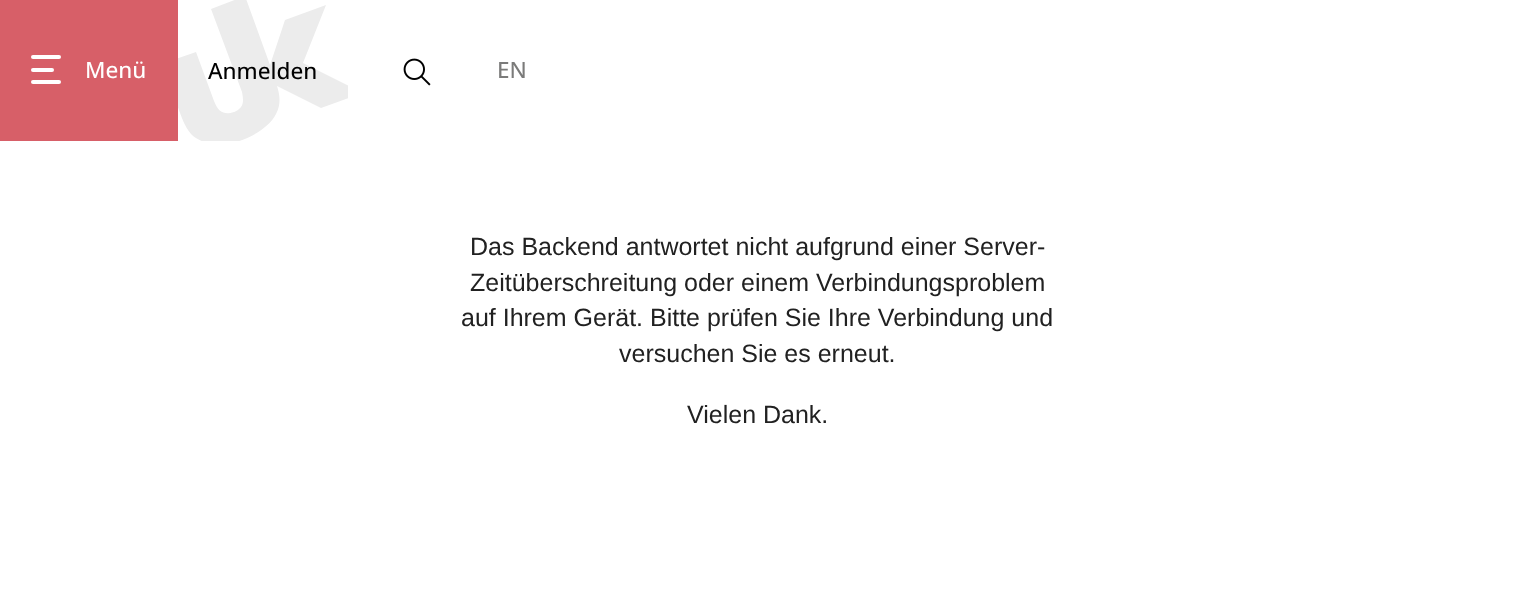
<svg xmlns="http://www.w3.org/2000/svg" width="1515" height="592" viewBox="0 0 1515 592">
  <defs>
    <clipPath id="clip1"><path d="M178 0h170v141H178z"/></clipPath>
  </defs>
  <rect width="100%" height="100%" fill="#fff"/>
  <path d="M0 0h178v141H0z" fill="#d75f68"/>
  <rect x="31" y="68" width="23" height="4" rx="2" fill="#fff"/>
  <rect x="31" y="55" width="30" height="4" rx="2" fill="#fff"/>
  <rect x="31" y="80" width="30" height="4" rx="2" fill="#fff"/>
  <g clip-path="url(#clip1)">
    <path d="M242 92C243 97 244 103 241 107C239 110 234 112 234 112C219 117 216 105 214 101L196 52L162 64L177 105C181 115 184 126 191 134C198 141 208 144 218 145C237 145 267 132 276 114C281 105 280 95 277 86L321 108L363 93L303 63L326 5L285 20L270 65L245-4L211 9" fill="#ececec"/>
  </g>
  <image x="403" y="58" width="28" height="28" href="img/1.png"/>
  <text x="85" y="78" font-family="Open Sans" font-size="22.5" font-weight="500" fill="#fff">Menü</text>
  <text x="208" y="79" font-family="Open Sans" font-size="22.5" font-weight="500" fill="#000">Anmelden</text>
  <text x="497" y="78" font-family="Open Sans" font-size="22.5" font-weight="500" fill="#7b7b7a">EN</text>
  <g font-family="Liberation Sans" font-size="25" fill="#212121">
    <text x="470" y="255">Das Backend antwortet nicht aufgrund einer Server-</text>
    <text x="470" y="291">Zeitüberschreitung oder einem Verbindungsproblem</text>
    <text x="461" y="326">auf Ihrem Gerät. Bitte prüfen Sie Ihre Verbindung und</text>
    <text x="619" y="362">versuchen Sie es erneut.</text>
    <text x="687" y="423">Vielen Dank.</text>
  </g>
</svg>
